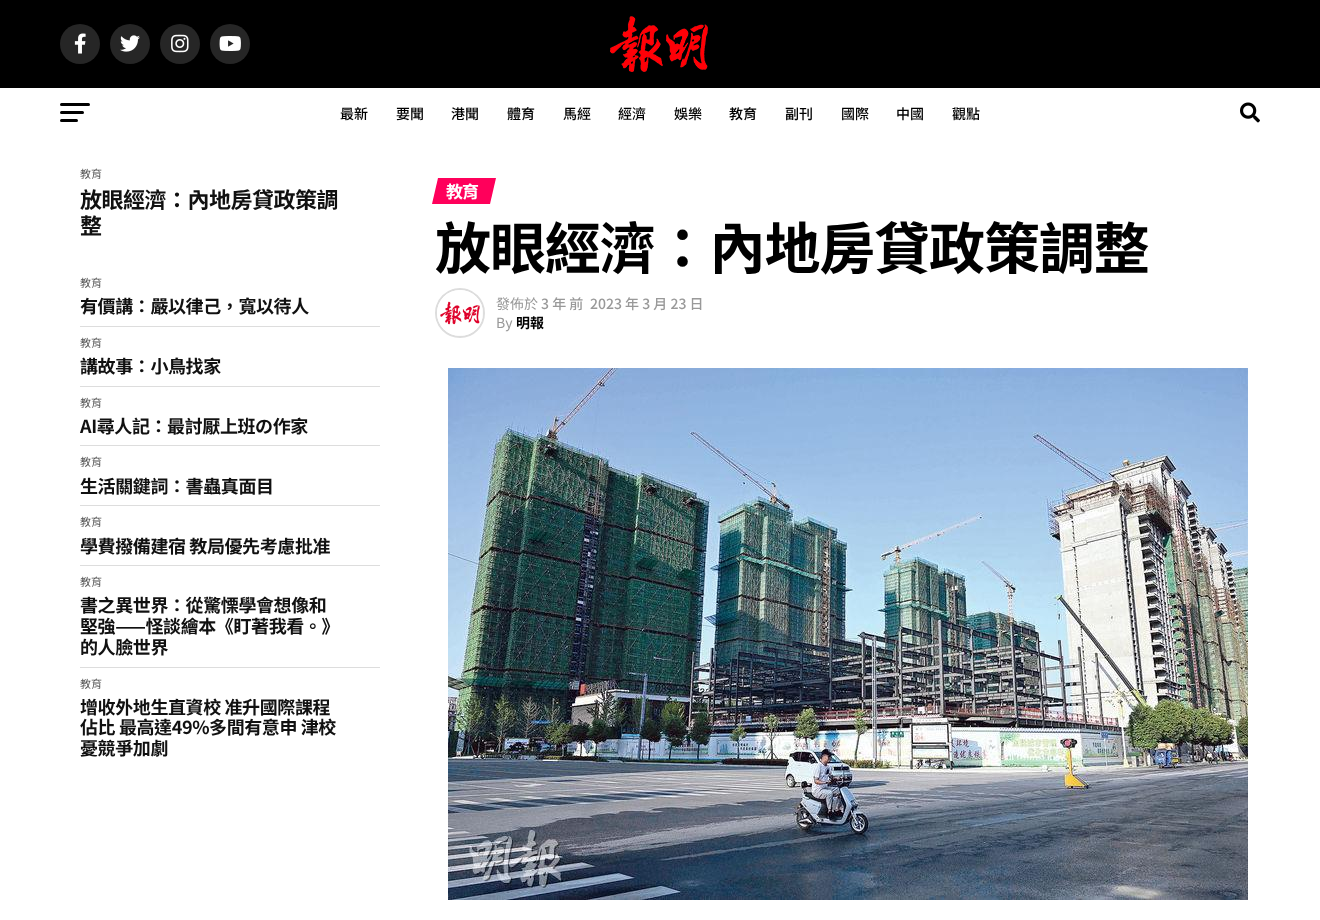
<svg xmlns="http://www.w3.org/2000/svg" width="1320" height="920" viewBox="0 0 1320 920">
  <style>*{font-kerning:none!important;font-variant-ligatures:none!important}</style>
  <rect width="100%" height="100%" fill="#fff"/>
  <path d="M0 0h1320v88H0z" fill="#000"/>
  <circle cx="80" cy="44" r="20" fill="#262626"/>
  <image x="74" y="33" width="12" height="21" href="img/1.png"/>
  <circle cx="130" cy="44" r="20" fill="#262626"/>
  <image x="120" y="35" width="20" height="17" href="img/2.png"/>
  <circle cx="180" cy="44" r="20" fill="#262626"/>
  <image x="171" y="34" width="18" height="19" href="img/3.png"/>
  <circle cx="230" cy="44" r="20" fill="#262626"/>
  <image x="219" y="36" width="22" height="15" href="img/4.png"/>
  <image x="610" y="16" width="98" height="56" href="img/5.png"/>
  <rect x="60" y="103" width="30" height="3" rx="1.5" fill="#000"/>
  <rect x="60" y="111" width="24" height="3" rx="1.5" fill="#000"/>
  <rect x="60" y="119" width="18" height="3" rx="1.5" fill="#000"/>
  <image x="1240" y="102" width="20" height="21" href="img/6.png"/>
  <path d="M80 326h300v1H80z" fill="#ddd"/>
  <path d="M80 386h300v1H80z" fill="#ddd"/>
  <path d="M80 445h300v1H80z" fill="#ddd"/>
  <path d="M80 505h300v1H80z" fill="#ddd"/>
  <path d="M80 565h300v1H80z" fill="#ddd"/>
  <path d="M80 667h300v1H80z" fill="#ddd"/>
  <path d="M438 178H496L490 204H432Z" fill="#ff005b"/>
  <circle cx="460" cy="313" r="24" fill="none" stroke="#ddd" stroke-width="2"/>
  <image x="437" y="290" width="46" height="46" href="img/7.png"/>
  <image x="448" y="368" width="800" height="532" href="img/8.png"/>
  <g font-family="Noto Sans TC" font-size="14" font-weight="500" fill="#000">
    <text x="340" y="119">最新</text>
    <text x="396" y="119">要聞</text>
    <text x="451" y="119">港聞</text>
    <text x="507" y="119">體育</text>
    <text x="563" y="119">馬經</text>
    <text x="618" y="119">經濟</text>
    <text x="674" y="119">娛樂</text>
    <text x="729" y="119">教育</text>
    <text x="785" y="119">副刊</text>
    <text x="841" y="119">國際</text>
    <text x="896" y="119">中國</text>
    <text x="952" y="119">觀點</text>
  </g>
  <text x="80" y="178" font-family="Noto Sans TC" font-size="11" fill="#555">教育</text>
  <g font-family="Noto Sans TC" font-size="22" font-weight="bold" letter-spacing="-0.5" fill="#111">
    <text x="80" y="208">放眼經濟：內地房貸政策調</text>
    <text x="80" y="234">整</text>
  </g>
  <text x="80" y="287" font-family="Noto Sans TC" font-size="11" fill="#555">教育</text>
  <text x="80" y="313" font-family="Noto Sans TC" font-size="18" font-weight="bold" letter-spacing="-0.4" fill="#111">有價講：嚴以律己，寬以待人</text>
  <text x="80" y="347" font-family="Noto Sans TC" font-size="11" fill="#555">教育</text>
  <text x="80" y="373" font-family="Noto Sans TC" font-size="18" font-weight="bold" letter-spacing="-0.4" fill="#111">講故事：小鳥找家</text>
  <text x="80" y="407" font-family="Noto Sans TC" font-size="11" fill="#555">教育</text>
  <text x="80" y="433" font-family="Noto Sans TC" font-size="18" font-weight="bold" letter-spacing="-0.4" fill="#111">AI尋人記：最討厭上班の作家</text>
  <text x="80" y="466" font-family="Noto Sans TC" font-size="11" fill="#555">教育</text>
  <text x="80" y="493" font-family="Noto Sans TC" font-size="18" font-weight="bold" letter-spacing="-0.4" fill="#111">生活關鍵詞：書蟲真面目</text>
  <text x="80" y="526" font-family="Noto Sans TC" font-size="11" fill="#555">教育</text>
  <text x="80" y="553" font-family="Noto Sans TC" font-size="18" font-weight="bold" letter-spacing="-0.4" fill="#111">學費撥備建宿 教局優先考慮批准</text>
  <text x="80" y="586" font-family="Noto Sans TC" font-size="11" fill="#555">教育</text>
  <g font-family="Noto Sans TC" font-size="18" font-weight="bold" letter-spacing="-0.4" fill="#111">
    <text x="80" y="612">書之異世界：從驚慄學會想像和</text>
    <text x="80" y="633">堅強——怪談繪本《盯著我看。》</text>
    <text x="80" y="654">的人臉世界</text>
  </g>
  <text x="80" y="688" font-family="Noto Sans TC" font-size="11" fill="#555">教育</text>
  <g font-family="Noto Sans TC" font-size="18" font-weight="bold" letter-spacing="-0.4" fill="#111">
    <text x="80" y="714">增收外地生直資校 准升國際課程</text>
    <text x="80" y="734">佔比 最高達49%多間有意申 津校</text>
    <text x="80" y="755">憂競爭加劇</text>
  </g>
  <text x="446" y="198" font-family="Noto Sans TC" font-size="17" font-weight="bold" letter-spacing="-1" fill="#fff">教育</text>
  <text x="435" y="269" font-family="Noto Sans TC" font-size="56" font-weight="bold" letter-spacing="-1.1" fill="#000">放眼經濟：內地房貸政策調整</text>
  <text x="496" y="309" font-family="Noto Sans TC" font-size="14" fill="#999">發佈於</text>
  <g font-family="Noto Sans TC" font-size="14" font-weight="500" fill="#999">
    <text x="541" y="309">3 年 前</text>
    <text x="590" y="309">2023 年 3 月 23 日</text>
  </g>
  <text x="496" y="328" font-family="Noto Sans TC" font-size="14" fill="#999">By</text>
  <text x="516" y="328" font-family="Noto Sans TC" font-size="14" font-weight="bold" fill="#000">明報</text>
</svg>
